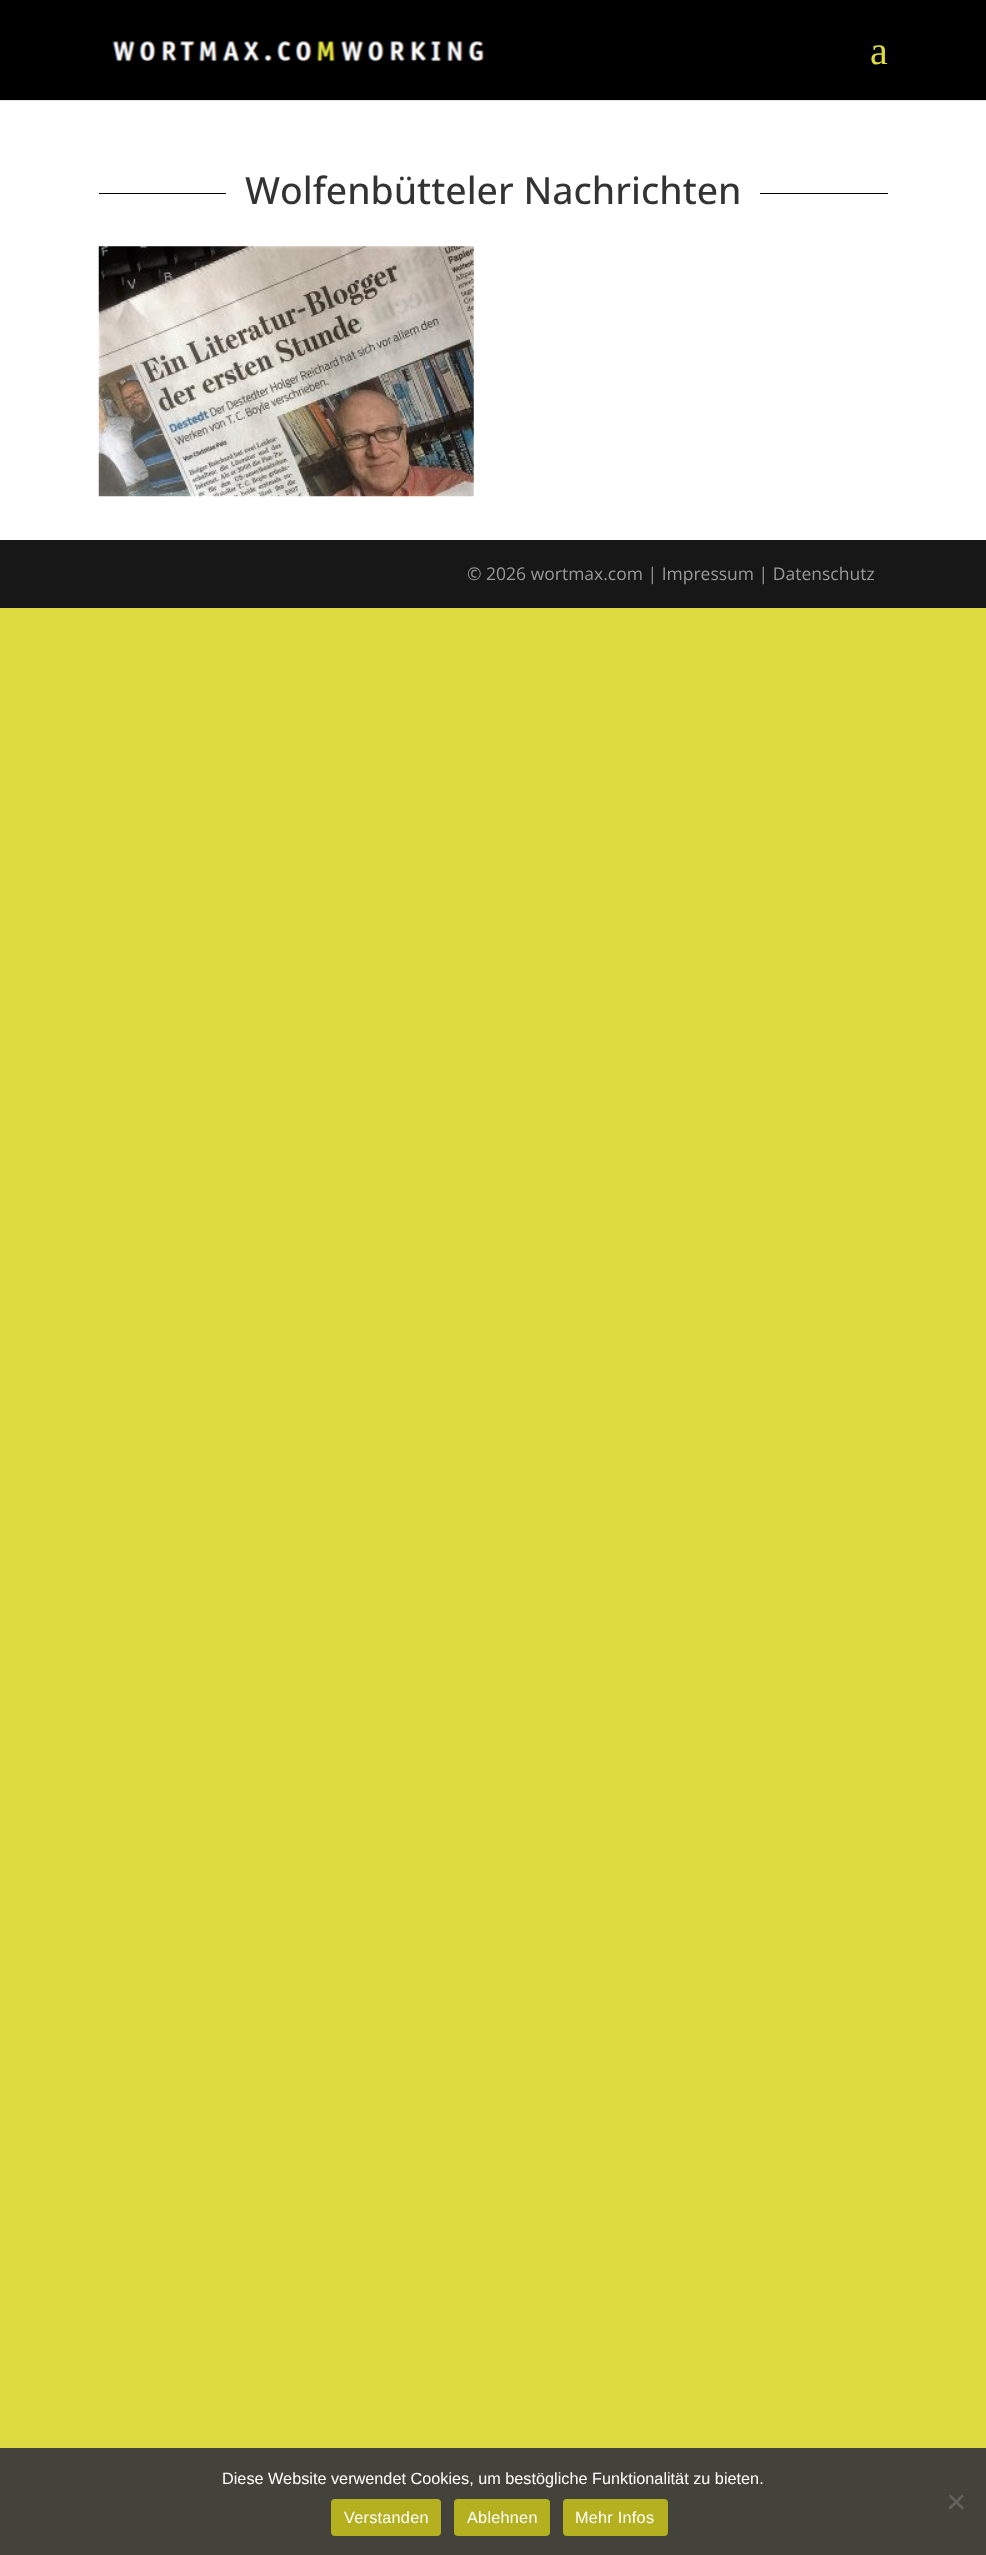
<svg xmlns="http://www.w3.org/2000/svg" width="986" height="2555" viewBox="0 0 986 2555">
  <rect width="100%" height="100%" fill="#dedb40"/>
  <path d="M0 100h986v1H0z" fill="#e6e6e6"/>
  <path d="M0 0h986v100H0z" fill="#000"/>
  <image x="112" y="41" width="372" height="21" href="img/1.png"/>
  <path d="M0 101h986v439H0z" fill="#fff"/>
  <path d="M99 193h127v1H99z" fill="#000"/>
  <path d="M760 193h128v1H760z" fill="#000"/>
  <image x="98" y="246" width="376" height="251" href="img/2.png"/>
  <path d="M0 540h986v68H0z" fill="#171717"/>
  <path d="M0 2448h986v107H0z" fill="#43433b"/>
  <path d="M962 2494.5L964 2496L950.5 2509.5L948.5 2507.5Z" fill="#62625e"/>
  <path d="M948.5 2496L950.5 2494.5L964 2507.5L962 2509.5Z" fill="#62625e"/>
  <rect x="331" y="2499" width="110" height="37" rx="4" fill="#b4b01f"/>
  <rect x="454" y="2499" width="96" height="37" rx="4" fill="#b4b01f"/>
  <rect x="563" y="2499" width="105" height="37" rx="4" fill="#b4b01f"/>
  <text x="870" y="64" font-family="Liberation Serif" font-size="40" fill="#dedb40">a</text>
  <text x="245" y="204" font-family="Open Sans" font-size="37.5" font-weight="500" fill="#333">Wolfenbütteler Nachrichten</text>
  <text x="467" y="580" font-family="Open Sans" font-size="17.5" fill="#999">© 2026 wortmax.com | Impressum | Datenschutz</text>
  <text x="222" y="2484" font-family="Liberation Sans" font-size="16.25" fill="#fff">Diese Website verwendet Cookies, um bestögliche Funktionalität zu bieten.</text>
  <g font-family="Liberation Sans" font-size="16.25" letter-spacing="0.25" fill="#fff">
    <text x="344" y="2523">Verstanden</text>
    <text x="467" y="2523">Ablehnen</text>
    <text x="575" y="2523">Mehr Infos</text>
  </g>
</svg>
